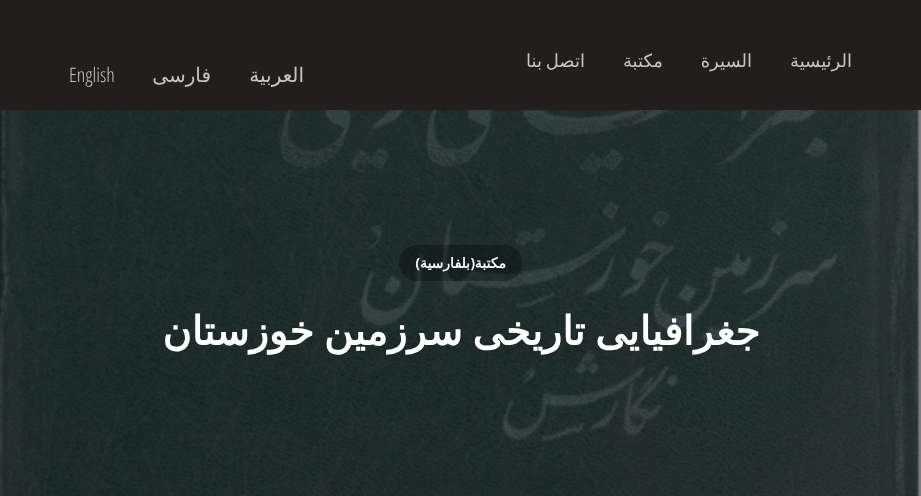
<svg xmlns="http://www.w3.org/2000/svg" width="921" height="496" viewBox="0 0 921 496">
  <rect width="100%" height="100%" fill="#fff"/>
  <path d="M0 0h921v110H0z" fill="#211e1b"/>
  <image x="0" y="110" width="921" height="386" href="img/1.png"/>
  <path d="M0 110h921v1H0z" fill="#00000014"/>
  <rect x="399" y="245" width="123" height="36" rx="18" fill="#0000004d"/>
  <g font-family="DejaVu Sans" font-size="18" direction="rtl" fill="#ccc4bc">
    <text x="852" y="67">الرئیسیة</text>
    <text x="752" y="67">السيرة</text>
    <text x="663" y="67">مکتبة</text>
    <text x="585" y="67" word-spacing="-2">اتصل بنا</text>
  </g>
  <g font-family="DejaVu Sans" font-size="20" direction="rtl" fill="#ccc4bc">
    <text x="304" y="82">العربية</text>
    <text x="211" y="82">فارسی</text>
  </g>
  <text x="69" y="82" font-family="Open Sans Condensed" font-size="20" font-weight="300" fill="#ccc4bc">English</text>
  <text x="506" y="268" font-family="DejaVu Sans" font-size="14" font-weight="bold" direction="rtl" fill="#fff">مکتبة</text>
  <text x="475" y="268" font-family="Open Sans Condensed" font-size="14" font-weight="bold" direction="rtl" fill="#fff">(</text>
  <text x="470" y="268" font-family="DejaVu Sans" font-size="14" font-weight="bold" direction="rtl" fill="#fff">بلفارسیة</text>
  <text x="420" y="268" font-family="Open Sans Condensed" font-size="14" font-weight="bold" direction="rtl" fill="#fff">)</text>
  <text x="760" y="345" word-spacing="-3" font-family="DejaVu Sans" font-size="40" font-weight="bold" direction="rtl" fill="#fff">جغرافیایی تاریخی سرزمین خوزستان</text>
</svg>
